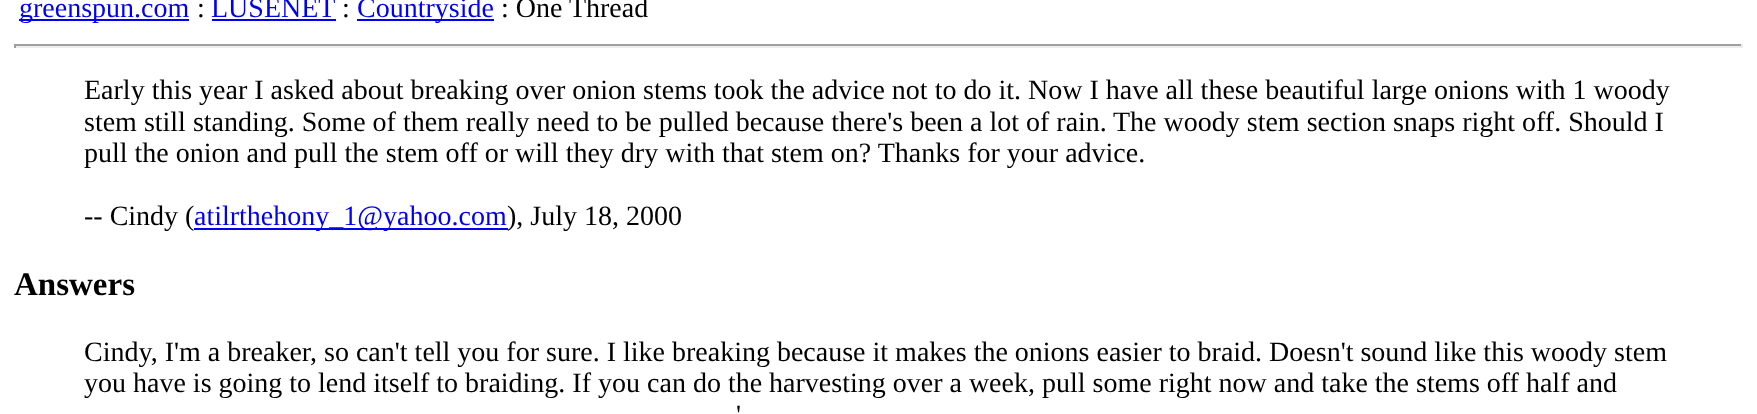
<svg xmlns="http://www.w3.org/2000/svg" width="1757" height="414" viewBox="0 0 1757 414">
  <rect width="100%" height="100%" fill="#fff"/>
  <path d="M19 19h170v2H19z" fill="#00e"/>
  <path d="M212 19h124v2H212z" fill="#00e"/>
  <path d="M357 19h137v2H357z" fill="#00e"/>
  <path d="M14 44h1729v2H14z" fill="#9f9f9f"/>
  <path d="M1741 44h2v4H1741z" fill="#eee"/>
  <path d="M14 46h1729v2H14z" fill="#eee"/>
  <path d="M14 44h2v4H14z" fill="#9f9f9f"/>
  <path d="M194 228h314v2H194z" fill="#00e"/>
  <text x="19" y="17" font-family="Liberation Serif" font-size="28" fill="#00e">greenspun.com</text>
  <text x="197" y="17" font-family="Liberation Serif" font-size="28" fill="#000">:</text>
  <text x="211" y="17" font-family="Liberation Serif" font-size="28" fill="#00e">LUSENET</text>
  <text x="342" y="17" font-family="Liberation Serif" font-size="28" fill="#000">:</text>
  <text x="357" y="17" font-family="Liberation Serif" font-size="28" fill="#00e">Countryside</text>
  <g font-family="Liberation Serif" font-size="28" fill="#000">
    <text x="501" y="17">: One Thread</text>
    <text x="84" y="99">Early this year I asked about breaking over onion stems took the advice not to do it. Now I have all these beautiful large onions with 1 woody</text>
    <text x="84" y="131">stem still standing. Some of them really need to be pulled because there's been a lot of rain.</text>
    <text x="1113" y="131">The woody stem section snaps right off. Should I</text>
    <text x="84" y="162">pull the onion and pull the stem off or will they dry with that stem on? Thanks for your advice.</text>
    <text x="84" y="225">-- Cindy (</text>
  </g>
  <text x="194" y="225" font-family="Liberation Serif" font-size="28" fill="#00e">atilrthehony_1@yahoo.com</text>
  <text x="507" y="225" font-family="Liberation Serif" font-size="28" fill="#000">), July 18, 2000</text>
  <text x="14" y="295" font-family="Liberation Serif" font-size="33" font-weight="bold" fill="#000">Answers</text>
  <g font-family="Liberation Serif" font-size="28" fill="#000">
    <text x="84" y="361">Cindy, I'm a breaker, so can't tell you for sure. I like breaking because it makes the onions easier to braid. Doesn't sound like this woody stem</text>
    <text x="84" y="392">you have is going to lend itself to braiding. If you can do the harvesting over a week, pull some right now and take the stems off half and</text>
    <text x="736" y="424">'</text>
  </g>
</svg>
